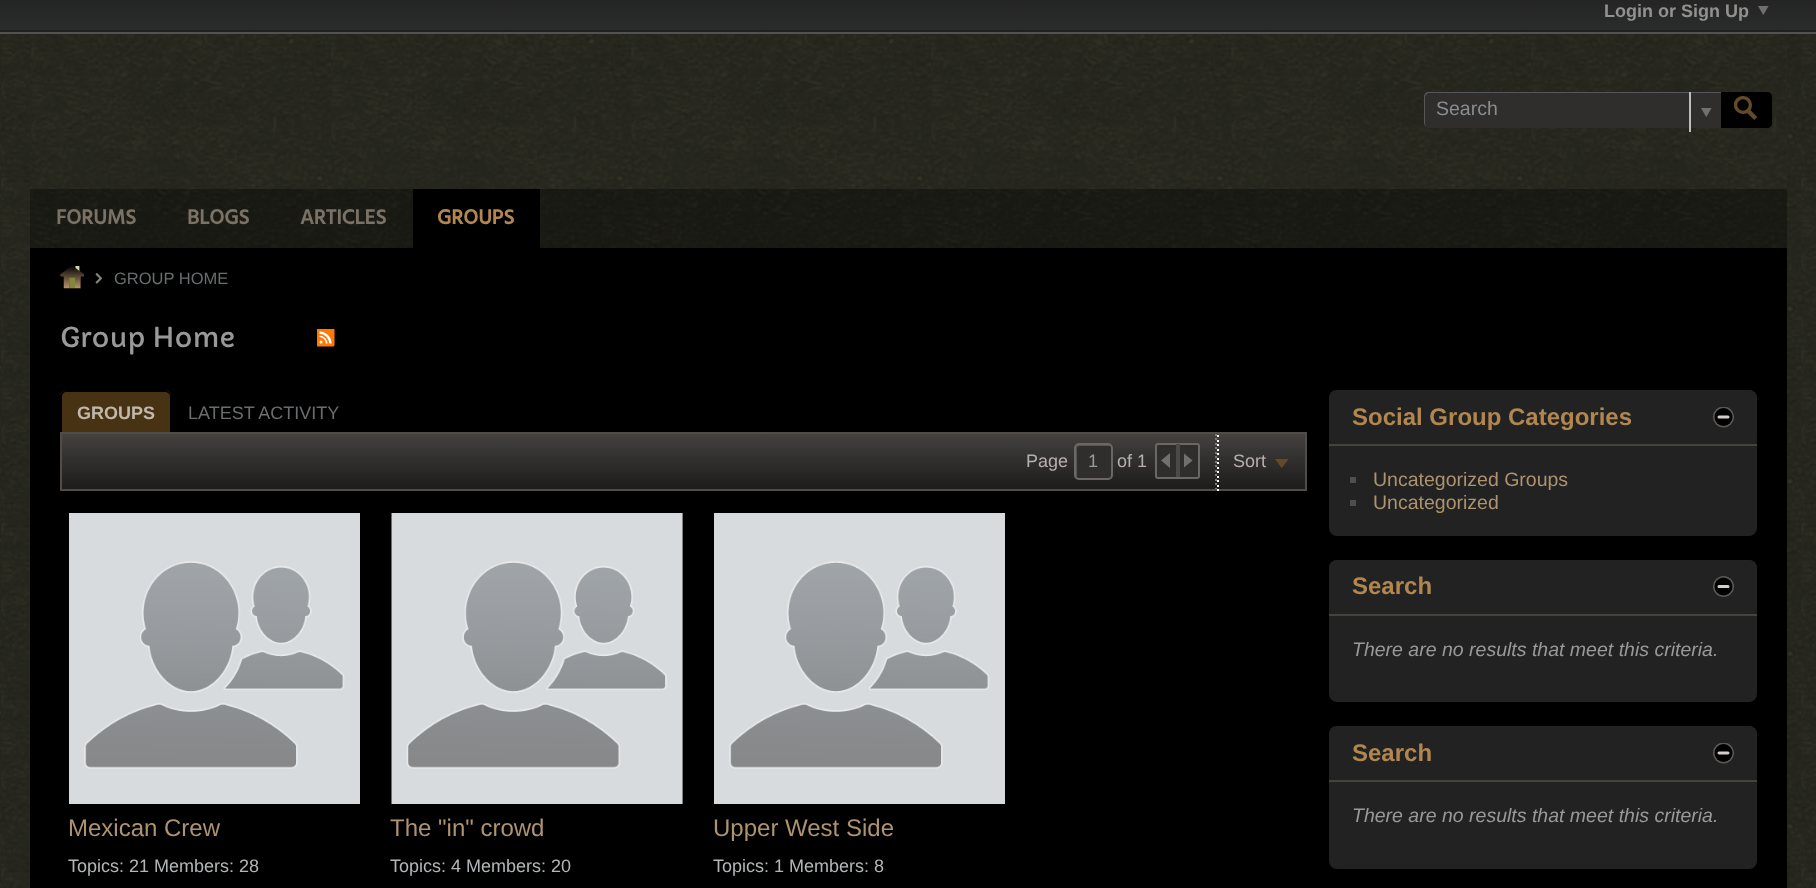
<svg xmlns="http://www.w3.org/2000/svg" width="1816" height="888" viewBox="0 0 1816 888">
  <defs>
    <linearGradient id="g1" gradientUnits="userSpaceOnUse" x1="908" y1="-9" x2="908" y2="33"><stop offset="0" stop-color="#222"/><stop offset="1" stop-color="#2b2d2c"/></linearGradient>
    <linearGradient id="g2" gradientUnits="userSpaceOnUse" x1="683" y1="433" x2="683" y2="489"><stop offset="0" stop-color="#454240"/><stop offset="1" stop-color="#1c1c1b"/></linearGradient>
  </defs>
  <rect width="100%" height="100%" fill="#fff"/>
  <image x="0" y="34" width="1816" height="854" href="img/1.png"/>
  <path d="M0 0h1816v30H0z" fill="url(#g1)"/>
  <image x="1758" y="6" width="11" height="9" href="img/2.png"/>
  <path d="M0 30h1816v2H0z" fill="#202020"/>
  <path d="M0 32h1816v2H0z" fill="#535251"/>
  <path d="M1786 34h1v155H1786z" fill="#2c2a22"/>
  <image x="30" y="34" width="1757" height="155" href="img/3.png"/>
  <path d="M1429 92H1721V128H1429C1426 128 1424 126 1424 123V97C1424 94 1426 92 1429 92Z" fill="#302e2d"/>
  <path d="M1430 93H1721V92H1429C1426 92 1424 94 1424 97V123C1424 124 1425 126 1426 127L1425 124V98C1425 95 1427 93 1430 93Z" fill="#96969666"/>
  <path d="M1689 92h2v40H1689z" fill="#bdbdbd"/>
  <image x="1701" y="108" width="11" height="9" href="img/4.png"/>
  <path d="M1721 92H1767C1770 92 1772 94 1772 97V123C1772 126 1770 128 1767 128H1721Z" fill="#000"/>
  <image x="1734" y="96" width="23" height="24" href="img/5.png"/>
  <path d="M30 189h1757v59H30z" fill="#0000004d"/>
  <path d="M413 189h127v59H413z" fill="#000"/>
  <path d="M30 248h1757v640H30z" fill="#000"/>
  <image x="60" y="266" width="24" height="23" href="img/6.png"/>
  <image x="95" y="273" width="7" height="11" href="img/7.png"/>
  <image x="317" y="329" width="18" height="18" href="img/8.png"/>
  <path d="M66 390H165C168.5 390 171 392.5 171 396V434H60V396C60 392.5 62.5 390 66 390Z" fill="#483214"/>
  <path d="M66 390H165C168 390 171 393 171 396V434H60V396C60 393 63 390 66 390ZM66 392H165C167 392 170 394 170 396V434H62V396C62 394 64 392 66 392Z" fill="#000" fill-rule="evenodd"/>
  <path d="M62 434h1243v55H62z" fill="url(#g2)"/>
  <path d="M61 433h1245v57H61z" fill="none" stroke="#514c48" stroke-width="2"/>
  <rect x="1074" y="443" width="39" height="37" rx="5" fill="#302e2d"/>
  <path d="M1080 446H1110L1112 446.5C1111.5 445 1110.5 444 1109 444H1079C1077.5 444 1076 445.5 1076 447V476C1076 477 1076.5 478 1077 478.5V453C1077 449.5 1076 446 1080 446Z" fill="#595857"/>
  <rect x="1075" y="444" width="37" height="35" rx="4" fill="none" stroke="#6c6764" stroke-width="2"/>
  <rect x="1156" y="444" width="43" height="34" rx="2" fill="#302e2d" stroke="#6c6764" stroke-width="2"/>
  <path d="M1176 444h4v33H1176z" fill="#4d4946"/>
  <image x="1161" y="453" width="9" height="15" href="img/9.png"/>
  <image x="1184" y="453" width="9" height="15" href="img/10.png"/>
  <image x="1215" y="434" width="2" height="55" href="img/11.png"/>
  <image x="1217" y="435" width="2" height="56" href="img/12.png"/>
  <image x="1275" y="459" width="14" height="9" href="img/13.png"/>
  <image x="69" y="513" width="291" height="291" href="img/14.png"/>
  <path d="M682 513h1v291H682z" fill="#222"/>
  <image x="391" y="513" width="292" height="291" href="img/15.png"/>
  <image x="714" y="513" width="291" height="291" href="img/14.png"/>
  <rect x="1329" y="390" width="428" height="146" rx="8" fill="#222"/>
  <rect x="1329" y="390" width="428" height="54" rx="8" fill="#222"/>
  <image x="1713" y="407" width="21" height="21" href="img/16.png"/>
  <path d="M1329 444h428v2H1329z" fill="#44443f"/>
  <path d="M1350 477h6v6H1350z" fill="#524e4c"/>
  <path d="M1350 500h6v6H1350z" fill="#524e4c"/>
  <rect x="1329" y="560" width="428" height="142" rx="8" fill="#222"/>
  <rect x="1329" y="560" width="428" height="54" rx="8" fill="#222"/>
  <image x="1713" y="576" width="21" height="21" href="img/17.png"/>
  <path d="M1329 614h428v2H1329z" fill="#44443f"/>
  <rect x="1329" y="726" width="428" height="143" rx="8" fill="#222"/>
  <rect x="1329" y="726" width="428" height="54" rx="8" fill="#222"/>
  <image x="1713" y="743" width="21" height="21" href="img/18.png"/>
  <path d="M1329 780h428v2H1329z" fill="#44443f"/>
  <text x="1604" y="17" font-family="Liberation Sans" font-size="18" font-weight="bold" fill="#939190">Login or Sign Up</text>
  <text x="1436" y="115" font-family="Liberation Sans" font-size="19.5" fill="#898d91">Search</text>
  <g font-family="Hind" font-size="21" font-weight="bold" fill="#7b7165">
    <text x="56" y="224">FORUMS</text>
    <text x="187" y="224">BLOGS</text>
    <text x="300" y="224">ARTICLES</text>
  </g>
  <text x="437" y="224" font-family="Hind" font-size="21" font-weight="bold" fill="#b1864f">GROUPS</text>
  <text x="114" y="284" font-family="Liberation Sans" font-size="16.5" fill="#6a6d6f">GROUP HOME</text>
  <text x="60" y="347" font-family="Capriola" font-size="27" fill="#9a9999">Group Home</text>
  <text x="77" y="419" font-family="Liberation Sans" font-size="18" font-weight="bold" fill="#c1b8ab">GROUPS</text>
  <text x="188" y="419" font-family="Liberation Sans" font-size="18" fill="#6a6d6f">LATEST ACTIVITY</text>
  <text x="1026" y="467" font-family="Liberation Sans" font-size="18" fill="#b6afad">Page</text>
  <text x="1088" y="467" font-family="Liberation Sans" font-size="18" fill="#9a9999">1</text>
  <g font-family="Liberation Sans" font-size="18" fill="#b6afad">
    <text x="1117" y="467">of 1</text>
    <text x="1233" y="467">Sort</text>
  </g>
  <text x="68" y="836" font-family="Liberation Sans" font-size="24" fill="#ad936e">Mexican Crew</text>
  <text x="68" y="872" font-family="Liberation Sans" font-size="18" fill="#b3b6b8">Topics: 21 Members: 28</text>
  <text x="390" y="836" font-family="Liberation Sans" font-size="24" fill="#ad936e">The "in" crowd</text>
  <text x="390" y="872" font-family="Liberation Sans" font-size="18" fill="#b3b6b8">Topics: 4 Members: 20</text>
  <text x="713" y="836" font-family="Liberation Sans" font-size="24" fill="#ad936e">Upper West Side</text>
  <text x="713" y="872" font-family="Liberation Sans" font-size="18" fill="#b3b6b8">Topics: 1 Members: 8</text>
  <text x="1352" y="425" font-family="Liberation Sans" font-size="24" font-weight="bold" fill="#b1864f">Social Group Categories</text>
  <g font-family="Liberation Sans" font-size="19.5" fill="#ad936e">
    <text x="1373" y="486">Uncategorized Groups</text>
    <text x="1373" y="509">Uncategorized</text>
  </g>
  <text x="1352" y="594" font-family="Liberation Sans" font-size="24" font-weight="bold" fill="#b1864f">Search</text>
  <text x="1352" y="656" font-family="Liberation Sans" font-size="19.5" font-style="italic" fill="#9a9999">There are no results that meet this criteria.</text>
  <text x="1352" y="761" font-family="Liberation Sans" font-size="24" font-weight="bold" fill="#b1864f">Search</text>
  <text x="1352" y="822" font-family="Liberation Sans" font-size="19.5" font-style="italic" fill="#9a9999">There are no results that meet this criteria.</text>
</svg>
